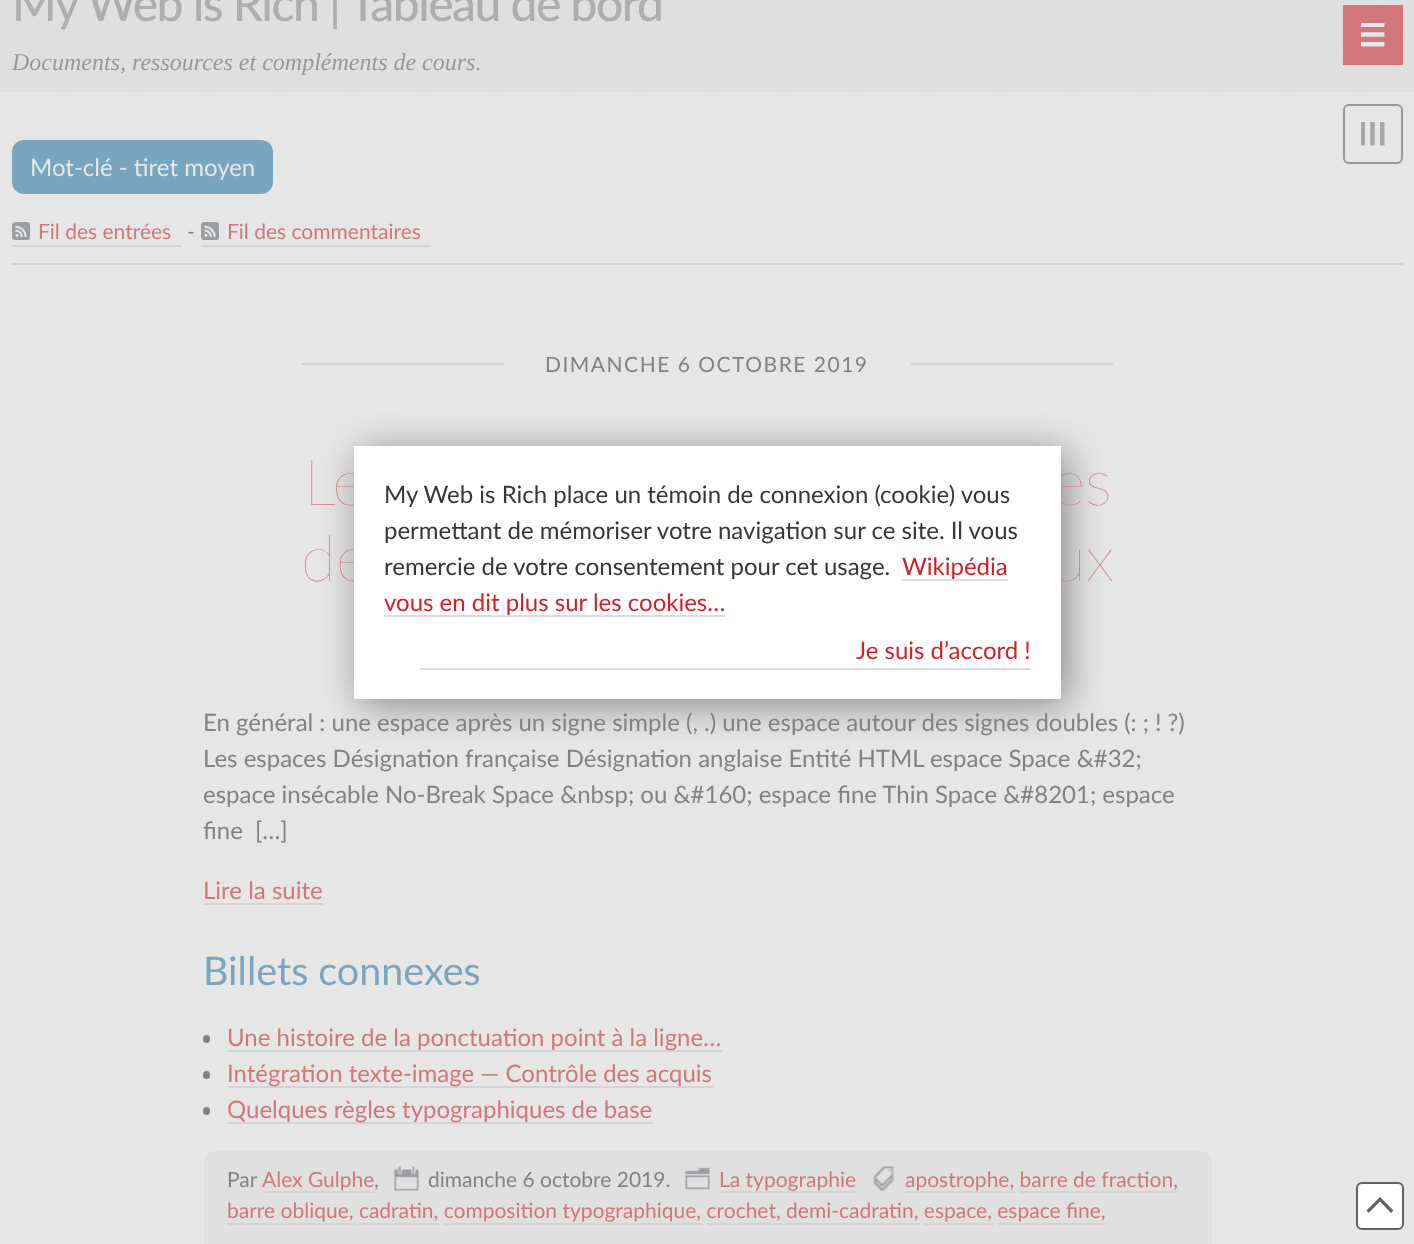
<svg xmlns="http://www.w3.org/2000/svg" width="1414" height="1244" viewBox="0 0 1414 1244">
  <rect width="100%" height="100%" fill="#fff"/>
  <image x="0" y="0" width="1414" height="92" href="img/1.png"/>
  <path d="M1343 5h60v60H1343z" fill="#d17779"/>
  <image x="1361" y="23" width="24" height="24" href="img/2.png"/>
  <path d="M0 92h1414v1152H0z" fill="#e6e6e6"/>
  <image x="1361" y="122" width="24" height="24" href="img/3.png"/>
  <rect x="1344" y="105" width="58" height="58" rx="5" fill="none" stroke="#989898" stroke-width="2"/>
  <path d="M12 263h1391v2H12z" fill="#d4d4d4"/>
  <rect x="12" y="140" width="261" height="54" rx="12" fill="#79a5be"/>
  <image x="12" y="222" width="18" height="18" href="img/4.png"/>
  <path d="M12 245h170v2H12z" fill="#d4d4d4"/>
  <image x="201" y="222" width="18" height="18" href="img/4.png"/>
  <path d="M201 245h230v2H201z" fill="#d4d4d4"/>
  <path d="M302 363h202v2H302z" fill="#d4d4d4"/>
  <path d="M911 363h202v2H911z" fill="#d4d4d4"/>
  <path d="M204 903h119v2H204z" fill="#d4d4d4"/>
  <rect x="203" y="1035" width="7" height="8" rx="3.5" fill="#828282"/>
  <path d="M228 1050h494v2H228z" fill="#d4d4d4"/>
  <rect x="203" y="1071" width="7" height="8" rx="3.5" fill="#828282"/>
  <path d="M228 1086h485v2H228z" fill="#d4d4d4"/>
  <rect x="203" y="1107" width="7" height="8" rx="3.5" fill="#828282"/>
  <path d="M228 1122h425v2H228z" fill="#d4d4d4"/>
  <rect x="204" y="1151" width="1008" height="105" rx="12" fill="#e0e0e0"/>
  <image x="394" y="1166" width="25" height="25" href="img/5.png"/>
  <image x="685" y="1167" width="25" height="23" href="img/6.png"/>
  <image x="872" y="1166" width="23" height="25" href="img/7.png"/>
  <path d="M905 1191h110v2H905z" fill="#d4d4d4"/>
  <path d="M1020 1191h158v2H1020z" fill="#d4d4d4"/>
  <path d="M227 1223h128v2H227z" fill="#d4d4d4"/>
  <path d="M359 1223h80v2H359z" fill="#d4d4d4"/>
  <path d="M444 1223h258v2H444z" fill="#d4d4d4"/>
  <path d="M707 1223h75v2H707z" fill="#d4d4d4"/>
  <path d="M786 1223h134v2H786z" fill="#d4d4d4"/>
  <path d="M924 1223h69v2H924z" fill="#d4d4d4"/>
  <path d="M998 1223h108v2H998z" fill="#d4d4d4"/>
  <path d="M263 1191h111v2H263z" fill="#d4d4d4"/>
  <path d="M719 1191h138v2H719z" fill="#d4d4d4"/>
  <rect x="1357" y="1183" width="46" height="46" rx="5" fill="#fff" stroke="#636363" stroke-width="2"/>
  <path d="M1393.5 1210.5L1391 1213L1380 1201.5L1368.5 1213L1366.5 1210.5L1380 1197Z" fill="#636363"/>
  <path d="M360 452h707v253H360z" fill="#888" filter="blur(19px)"/>
  <text x="12" y="21" font-family="Lato" font-size="48" font-weight="500" letter-spacing="-1.5" fill="#aeaeae">My Web is Rich | Tableau de bord</text>
  <text x="12" y="70" font-family="Liberation Serif" font-size="24" font-style="italic" fill="#989898">Documents, ressources et compléments de cours.</text>
  <text x="30" y="176" font-family="Lato" font-size="24" fill="#e6e6e6">Mot-clé - tiret moyen</text>
  <text x="38" y="239" font-family="Lato" font-size="21" fill="#d17779">Fil des entrées</text>
  <text x="187" y="239" font-family="Lato" font-size="21" fill="#828282">-</text>
  <text x="227" y="239" font-family="Lato" font-size="21" fill="#d17779">Fil des commentaires</text>
  <text x="545" y="372" font-family="Lato" font-size="21" letter-spacing="1.5" fill="#828282">DIMANCHE 6 OCTOBRE 2019</text>
  <g font-family="Lato" font-size="64" font-weight="200" fill="#d17779">
    <text x="304" y="505">Le</text>
    <text x="1052" y="505">es</text>
    <text x="301" y="581">de</text>
    <text x="1051" y="581">ux</text>
  </g>
  <g font-family="Lato" font-size="24" fill="#828282">
    <text x="203" y="731">En général : une espace après un signe simple (, .) une espace autour des signes doubles (: ; ! ?)</text>
    <text x="203" y="767">Les espaces Désignation française Désignation anglaise Entité HTML espace Space &amp;#32;</text>
    <text x="203" y="803">espace insécable No-Break Space &amp;nbsp; ou &amp;#160; espace fine Thin Space &amp;#8201; espace</text>
    <text x="203" y="839">fine</text>
    <text x="255" y="839">[…]</text>
  </g>
  <text x="203" y="899" font-family="Lato" font-size="24" fill="#d17779">Lire la suite</text>
  <text x="203" y="985" font-family="Lato" font-size="39.5" fill="#79a5be">Billets connexes</text>
  <g font-family="Lato" font-size="24" fill="#d17779">
    <text x="227" y="1046">Une histoire de la ponctuation point à la ligne…</text>
    <text x="227" y="1082">Intégration texte-image — Contrôle des acquis</text>
    <text x="227" y="1118">Quelques règles typographiques de base</text>
  </g>
  <g font-family="Lato" font-size="21" fill="#d17779">
    <text x="905" y="1187">apostrophe, barre de fraction,</text>
    <text x="227" y="1218">barre oblique, cadratin, composition typographique, crochet, demi-cadratin, espace, espace fine,</text>
  </g>
  <text x="227" y="1187" font-family="Lato" font-size="21" fill="#828282">Par</text>
  <text x="262" y="1187" font-family="Lato" font-size="21" fill="#d17779">Alex Gulphe</text>
  <g font-family="Lato" font-size="21" fill="#828282">
    <text x="374" y="1187">,</text>
    <text x="428" y="1187">dimanche 6 octobre 2019.</text>
  </g>
  <text x="719" y="1187" font-family="Lato" font-size="21" fill="#d17779">La typographie</text>
  <path d="M354 446h707v253H354z" fill="#fff"/>
  <g font-family="Lato" font-size="24" fill="#373737">
    <text x="384" y="503">My Web is Rich place un témoin de connexion (cookie) vous</text>
    <text x="384" y="539">permettant de mémoriser votre navigation sur ce site. Il vous</text>
    <text x="384" y="575">remercie de votre consentement pour cet usage.</text>
  </g>
  <path d="M902 579h106v2H902z" fill="#dcdcdc"/>
  <text x="902" y="575" font-family="Lato" font-size="24" fill="#d52125">Wikipédia</text>
  <path d="M384 615h341v2H384z" fill="#dcdcdc"/>
  <text x="384" y="611" font-family="Lato" font-size="24" fill="#d52125">vous en dit plus sur les cookies…</text>
  <path d="M420 668h611v2H420z" fill="#dcdcdc"/>
  <text x="856" y="659" font-family="Lato" font-size="24" fill="#d52125">Je suis d’accord !</text>
</svg>
